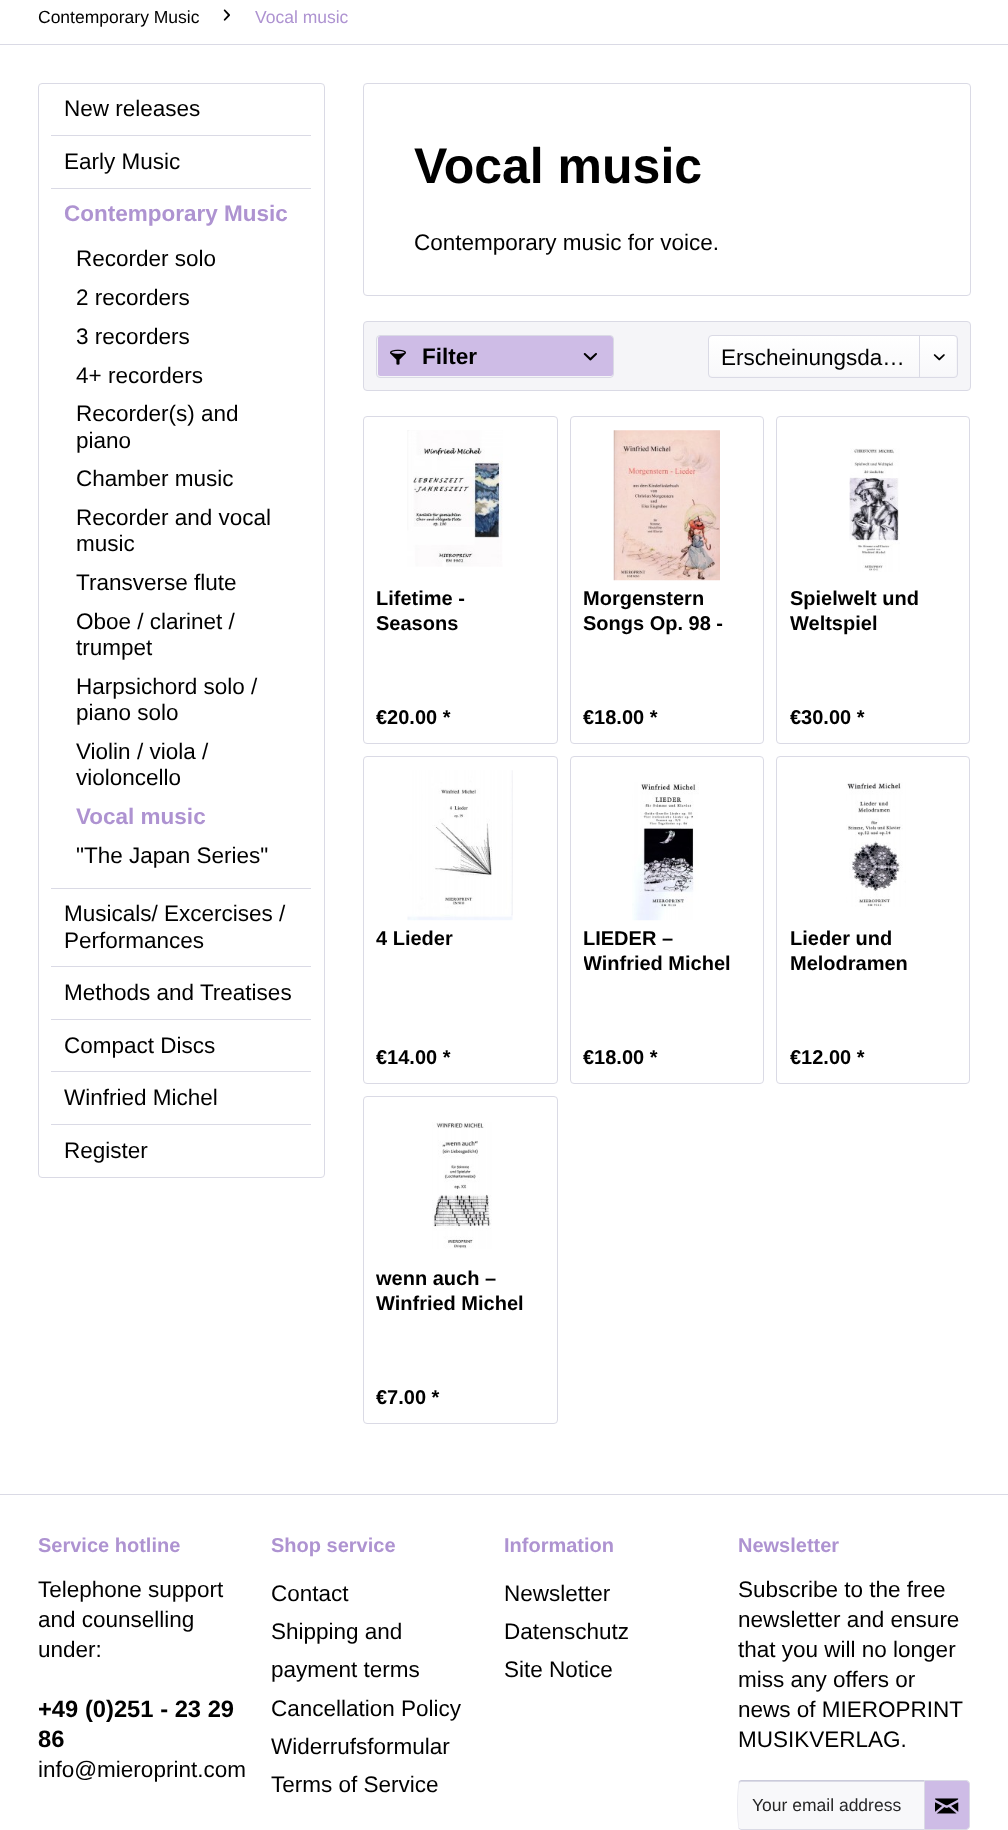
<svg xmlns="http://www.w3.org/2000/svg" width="1008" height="1830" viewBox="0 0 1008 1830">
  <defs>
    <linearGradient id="g1" gradientUnits="userSpaceOnUse" x1="833" y1="336" x2="833" y2="376"><stop offset="0" stop-color="#fff"/><stop offset="1" stop-color="#f8f8fa"/></linearGradient>
    <clipPath id="clip1"><path d="M584 926h166v50H584z"/></clipPath>
  </defs>
  <rect width="100%" height="100%" fill="#fff"/>
  <path d="M0 44h1008v1H0z" fill="#dadae5"/>
  <image x="223" y="9" width="7" height="12" href="img/1.png"/>
  <rect x="38.5" y="83.5" width="286" height="1094" rx="3.5" fill="none" stroke="#dadae5"/>
  <path d="M51 135h260v1H51z" fill="#dadae5"/>
  <path d="M51 188h260v1H51z" fill="#dadae5"/>
  <path d="M51 888h260v1H51z" fill="#dadae5"/>
  <path d="M51 966h260v1H51z" fill="#dadae5"/>
  <path d="M51 1019h260v1H51z" fill="#dadae5"/>
  <path d="M51 1071h260v1H51z" fill="#dadae5"/>
  <path d="M51 1124h260v1H51z" fill="#dadae5"/>
  <rect x="363.5" y="83.5" width="607" height="212" rx="3.5" fill="none" stroke="#dadae5"/>
  <rect x="363.5" y="321.5" width="607" height="69" rx="3.5" fill="#f5f5f8" stroke="#dadae5"/>
  <rect x="378" y="336" width="235" height="40" rx="2.5" fill="#cebce6"/>
  <rect x="376.5" y="335.5" width="237" height="42" rx="3.5" fill="none" stroke="#dadae5"/>
  <image x="390" y="349" width="16" height="16" href="img/2.png"/>
  <image x="583" y="353" width="14" height="8" href="img/3.png"/>
  <rect x="709" y="336" width="247" height="40" rx="2.5" fill="url(#g1)"/>
  <rect x="708.5" y="335.5" width="249" height="42" rx="3.5" fill="none" stroke="#dadae5"/>
  <path d="M919 336h1v42H919z" fill="#dadae5"/>
  <image x="933" y="354" width="12" height="7" href="img/4.png"/>
  <rect x="363.5" y="416.5" width="194" height="327" rx="3.5" fill="none" stroke="#dadae5"/>
  <image x="407" y="430" width="96" height="137" href="img/5.png"/>
  <rect x="570.5" y="416.5" width="193" height="327" rx="3.5" fill="none" stroke="#dadae5"/>
  <image x="613" y="430" width="107" height="151" href="img/6.png"/>
  <rect x="776.5" y="416.5" width="193" height="327" rx="3.5" fill="none" stroke="#dadae5"/>
  <image x="849" y="448" width="51" height="124" href="img/7.png"/>
  <rect x="363.5" y="756.5" width="194" height="327" rx="3.5" fill="none" stroke="#dadae5"/>
  <image x="407" y="770" width="106" height="151" href="img/8.png"/>
  <rect x="570.5" y="756.5" width="193" height="327" rx="3.5" fill="none" stroke="#dadae5"/>
  <image x="632" y="782" width="67" height="139" href="img/9.png"/>
  <rect x="776.5" y="756.5" width="193" height="327" rx="3.5" fill="none" stroke="#dadae5"/>
  <image x="846" y="782" width="60" height="125" href="img/10.png"/>
  <rect x="363.5" y="1096.5" width="194" height="327" rx="3.5" fill="none" stroke="#dadae5"/>
  <image x="432" y="1122" width="60" height="127" href="img/11.png"/>
  <path d="M0 1494h1008v1H0z" fill="#dadae5"/>
  <path d="M741.5 1781H924V1829H741.5C740 1829 739 1828 739 1826.5V1783.5C739 1782 740 1781 741.5 1781Z" fill="#f8f8fa"/>
  <path d="M741 1782H924V1781H741C739 1781 739 1783 739 1785C739 1784 740 1782 741 1782Z" fill="#dadae5"/>
  <path d="M741 1780L739 1781V1782L741 1781H924L925 1780Z" fill="#cbcbdb"/>
  <path d="M925 1830L924 1829H741L739 1828V1829L741 1830Z" fill="#dadae5"/>
  <path d="M739 1781C737 1783 737 1827 739 1829V1828C738 1826 738 1784 739 1782Z" fill="#dadae5"/>
  <path d="M925 1781H966.5C968 1781 969 1782 969 1783.5V1826.5C969 1828 968 1829 966.5 1829H925Z" fill="#cebce6"/>
  <path d="M924.5 1780.5H966C968 1780.5 969.5 1782 969.5 1784V1826C969.5 1828 968 1829.5 966 1829.5H924.5Z" fill="none" stroke="#dadae5"/>
  <image x="935" y="1798" width="24" height="16" href="img/12.png"/>
  <text x="38" y="23" font-family="Liberation Sans" font-size="17.5" fill="#000">Contemporary Music</text>
  <text x="255" y="23" font-family="Liberation Sans" font-size="17.5" fill="#ae93d1">Vocal music</text>
  <g font-family="Liberation Sans" font-size="22.5" fill="#000">
    <text x="64" y="116">New releases</text>
    <text x="64" y="169">Early Music</text>
  </g>
  <text x="64" y="221" font-family="Liberation Sans" font-size="22.5" font-weight="bold" fill="#ae93d1">Contemporary Music</text>
  <g font-family="Liberation Sans" font-size="22.5" fill="#000">
    <text x="76" y="266">Recorder solo</text>
    <text x="76" y="305">2 recorders</text>
    <text x="76" y="344">3 recorders</text>
    <text x="76" y="383">4+ recorders</text>
    <text x="76" y="421">Recorder(s) and</text>
    <text x="76" y="448">piano</text>
    <text x="76" y="486">Chamber music</text>
    <text x="76" y="525">Recorder and vocal</text>
    <text x="76" y="551">music</text>
    <text x="76" y="590">Transverse flute</text>
    <text x="76" y="629">Oboe / clarinet /</text>
    <text x="76" y="655">trumpet</text>
    <text x="76" y="694">Harpsichord solo /</text>
    <text x="76" y="720">piano solo</text>
    <text x="76" y="759">Violin / viola /</text>
    <text x="76" y="785">violoncello</text>
  </g>
  <text x="76" y="824" font-family="Liberation Sans" font-size="22.5" font-weight="bold" fill="#ae93d1">Vocal music</text>
  <g font-family="Liberation Sans" font-size="22.5" fill="#000">
    <text x="76" y="863">"The Japan Series"</text>
    <text x="64" y="921">Musicals/ Excercises /</text>
    <text x="64" y="948">Performances</text>
    <text x="64" y="1000">Methods and Treatises</text>
    <text x="64" y="1053">Compact Discs</text>
    <text x="64" y="1105">Winfried Michel</text>
    <text x="64" y="1158">Register</text>
  </g>
  <text x="414" y="183" font-family="Liberation Sans" font-size="50" font-weight="bold" fill="#000">Vocal music</text>
  <text x="414" y="250" font-family="Liberation Sans" font-size="22.5" fill="#000">Contemporary music for voice.</text>
  <text x="422" y="364" font-family="Liberation Sans" font-size="22.5" font-weight="bold" fill="#000">Filter</text>
  <text x="721" y="365" font-family="Liberation Sans" font-size="22.5" fill="#000">Erscheinungsda…</text>
  <g font-family="Liberation Sans" font-size="20" font-weight="bold" fill="#000">
    <text x="376" y="605">Lifetime -</text>
    <text x="376" y="630">Seasons</text>
    <text x="376" y="724">€20.00 *</text>
    <text x="583" y="605">Morgenstern</text>
    <text x="583" y="630">Songs Op. 98 -</text>
    <text x="583" y="724">€18.00 *</text>
    <text x="790" y="605">Spielwelt und</text>
    <text x="790" y="630">Weltspiel</text>
    <text x="790" y="724">€30.00 *</text>
    <text x="376" y="945">4 Lieder</text>
    <text x="376" y="1064">€14.00 *</text>
    <text x="583" y="945">LIEDER –</text>
  </g>
  <g clip-path="url(#clip1)">
    <text x="583" y="970" font-family="Liberation Sans" font-size="20" font-weight="bold" fill="#000">Winfried Michel</text>
  </g>
  <g font-family="Liberation Sans" font-size="20" font-weight="bold" fill="#000">
    <text x="583" y="1064">€18.00 *</text>
    <text x="790" y="945">Lieder und</text>
    <text x="790" y="970">Melodramen</text>
    <text x="790" y="1064">€12.00 *</text>
    <text x="376" y="1285">wenn auch –</text>
    <text x="376" y="1310">Winfried Michel</text>
    <text x="376" y="1404">€7.00 *</text>
  </g>
  <text x="38" y="1552" font-family="Liberation Sans" font-size="20" font-weight="bold" fill="#ae93d1">Service hotline</text>
  <g font-family="Liberation Sans" font-size="22.5" fill="#000">
    <text x="38" y="1597">Telephone support</text>
    <text x="38" y="1627">and counselling</text>
    <text x="38" y="1657">under:</text>
  </g>
  <g font-family="Liberation Sans" font-size="23.75" font-weight="bold" fill="#000">
    <text x="38" y="1717">+49 (0)251 - 23 29</text>
    <text x="38" y="1747">86</text>
  </g>
  <text x="38" y="1777" font-family="Liberation Sans" font-size="22.5" fill="#000">info@mieroprint.com</text>
  <text x="271" y="1552" font-family="Liberation Sans" font-size="20" font-weight="bold" fill="#ae93d1">Shop service</text>
  <g font-family="Liberation Sans" font-size="22.5" fill="#000">
    <text x="271" y="1601">Contact</text>
    <text x="271" y="1639">Shipping and</text>
    <text x="271" y="1677">payment terms</text>
    <text x="271" y="1716">Cancellation Policy</text>
    <text x="271" y="1754">Widerrufsformular</text>
    <text x="271" y="1792">Terms of Service</text>
  </g>
  <text x="504" y="1552" font-family="Liberation Sans" font-size="20" font-weight="bold" fill="#ae93d1">Information</text>
  <g font-family="Liberation Sans" font-size="22.5" fill="#000">
    <text x="504" y="1601">Newsletter</text>
    <text x="504" y="1639">Datenschutz</text>
    <text x="504" y="1677">Site Notice</text>
  </g>
  <text x="738" y="1552" font-family="Liberation Sans" font-size="20" font-weight="bold" fill="#ae93d1">Newsletter</text>
  <g font-family="Liberation Sans" font-size="22.5" fill="#000">
    <text x="738" y="1597">Subscribe to the free</text>
    <text x="738" y="1627">newsletter and ensure</text>
    <text x="738" y="1657">that you will no longer</text>
    <text x="738" y="1687">miss any offers or</text>
    <text x="738" y="1717">news of MIEROPRINT</text>
    <text x="738" y="1747">MUSIKVERLAG.</text>
  </g>
  <text x="752" y="1811" font-family="Liberation Sans" font-size="17.5" fill="#262626">Your email address</text>
</svg>
